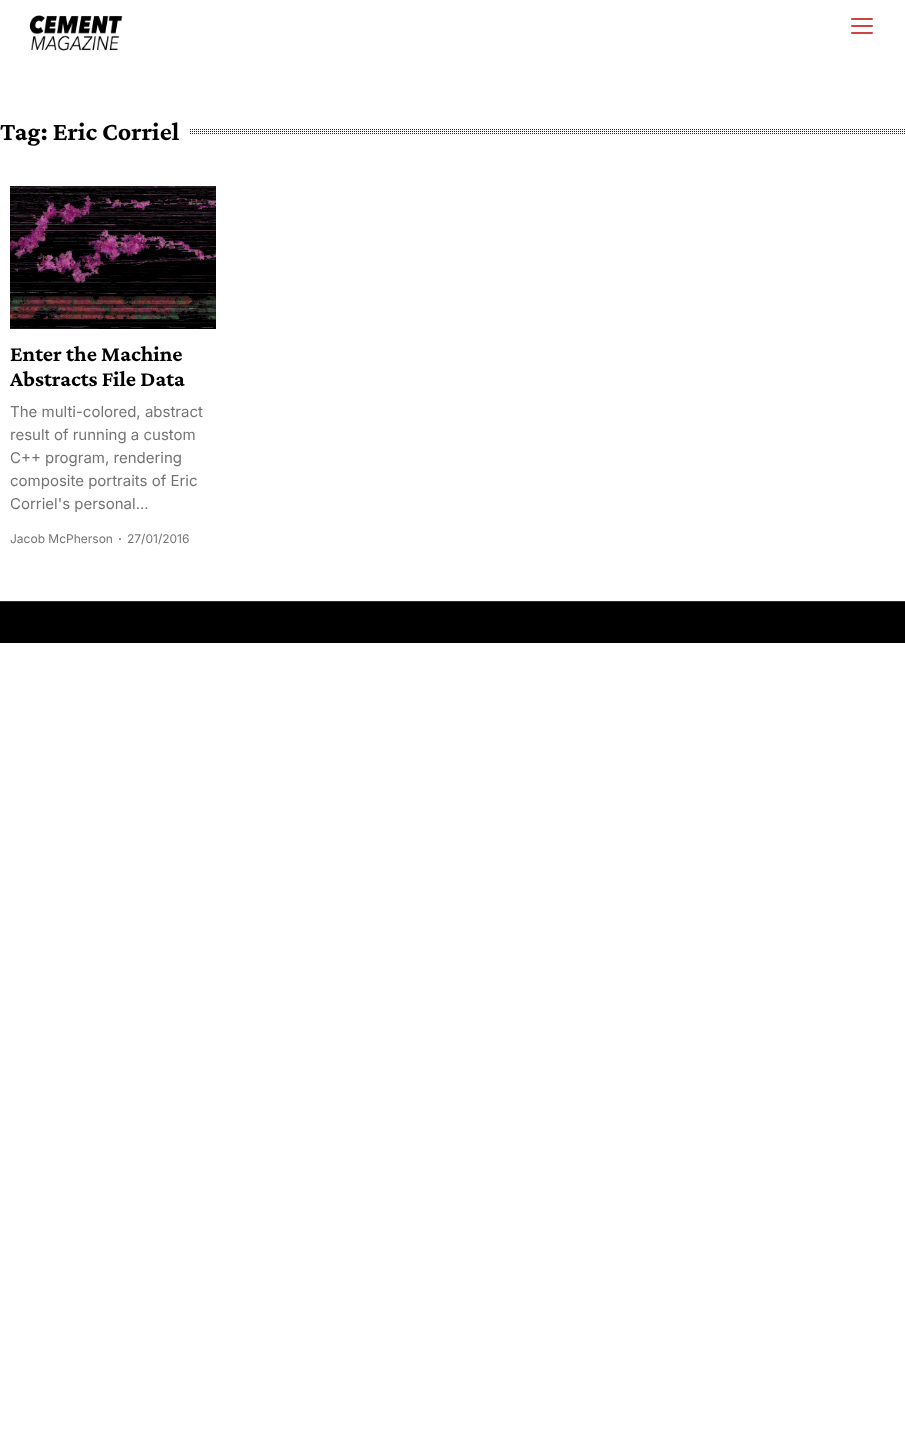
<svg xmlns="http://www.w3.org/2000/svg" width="905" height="1456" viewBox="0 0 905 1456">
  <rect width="100%" height="100%" fill="#fff"/>
  <image x="29" y="15" width="94" height="36" href="img/1.png"/>
  <rect x="851" y="18" width="22" height="2" rx="1" fill="#d14343"/>
  <rect x="851" y="25" width="22" height="2" rx="1" fill="#d14343"/>
  <rect x="851" y="32" width="22" height="2" rx="1" fill="#d14343"/>
  <path d="M0 131.5H905" fill="none" stroke="#222" stroke-dasharray="1 1"/>
  <path d="M0 129.5H905" fill="none" stroke="#222" stroke-dasharray="1 1"/>
  <path d="M0 133.5H905" fill="none" stroke="#222" stroke-dasharray="1 1"/>
  <path d="M0 129h189v5H0z" fill="#fff"/>
  <image x="10" y="186" width="206" height="143" href="img/2.png"/>
  <path d="M119 538h2v2H119z" fill="#999"/>
  <path d="M0 602h905v41H0z" fill="#000"/>
  <path d="M0 601h905v1H0z" fill="#2d2d2d"/>
  <text x="0" y="140" font-family="Crimson Pro" font-size="26" font-weight="bold" fill="#000">Tag: Eric Corriel</text>
  <g font-family="Crimson Pro" font-size="22" font-weight="bold" fill="#000">
    <text x="10" y="361">Enter the Machine</text>
    <text x="10" y="386">Abstracts File Data</text>
  </g>
  <g font-family="Inter" font-size="15" fill="#747474">
    <text x="10" y="417">The multi-colored, abstract</text>
    <text x="10" y="440">result of running a custom</text>
    <text x="10" y="463">C++ program, rendering</text>
    <text x="10" y="486">composite portraits of Eric</text>
    <text x="10" y="509">Corriel's personal...</text>
  </g>
  <g font-family="Inter" font-size="12" fill="#747474">
    <text x="10" y="543">Jacob McPherson</text>
    <text x="127" y="543">27/01/2016</text>
  </g>
</svg>
